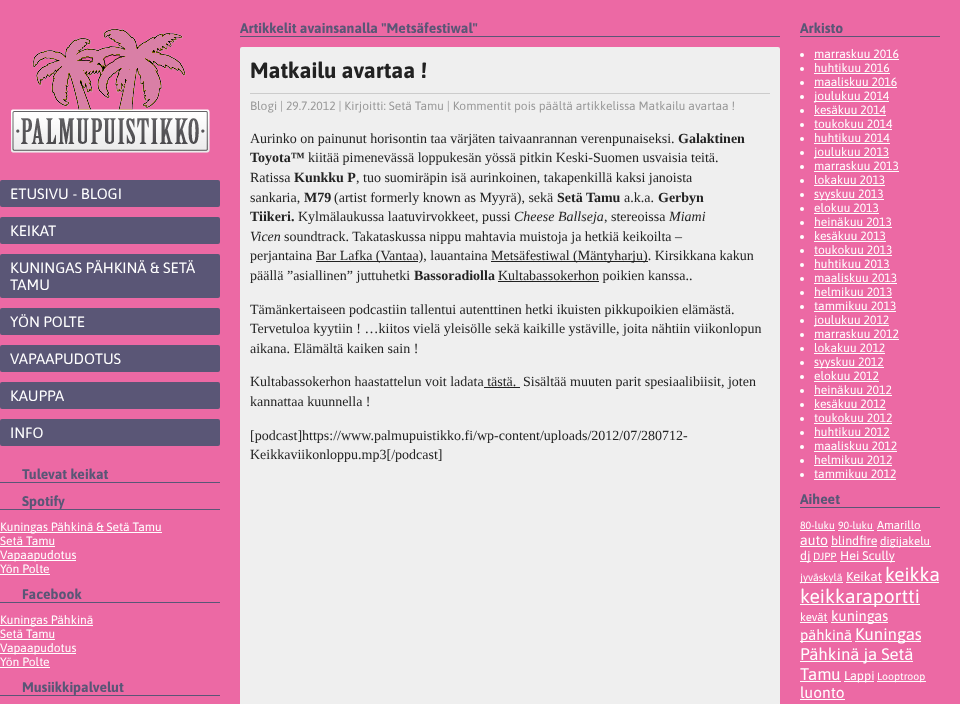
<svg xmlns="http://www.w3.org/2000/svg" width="960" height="704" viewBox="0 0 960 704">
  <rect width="100%" height="100%" fill="#ec69a4"/>
  <image x="11" y="28" width="199" height="125" href="img/1.png"/>
  <rect y="180" width="220" height="27" rx="2" fill="#5a5676"/>
  <rect y="217" width="220" height="27" rx="2" fill="#5a5676"/>
  <rect y="254" width="220" height="44" rx="2" fill="#5a5676"/>
  <rect y="308" width="220" height="27" rx="2" fill="#5a5676"/>
  <rect y="345" width="220" height="27" rx="2" fill="#5a5676"/>
  <rect y="382" width="220" height="27" rx="2" fill="#5a5676"/>
  <rect y="419" width="220" height="27" rx="2" fill="#5a5676"/>
  <path d="M0 482h220v1H0z" fill="#5a5676"/>
  <path d="M0 509h220v1H0z" fill="#5a5676"/>
  <path d="M0 532h162v1H0z" fill="#fff"/>
  <path d="M0 546h55v1H0z" fill="#fff"/>
  <path d="M0 560h76v1H0z" fill="#fff"/>
  <path d="M0 574h50v1H0z" fill="#fff"/>
  <path d="M0 602h220v1H0z" fill="#5a5676"/>
  <path d="M0 625h93v1H0z" fill="#fff"/>
  <path d="M0 639h55v1H0z" fill="#fff"/>
  <path d="M0 653h76v1H0z" fill="#fff"/>
  <path d="M0 667h50v1H0z" fill="#fff"/>
  <path d="M0 695h220v1H0z" fill="#5a5676"/>
  <path d="M240 36h540v1H240z" fill="#5a5676"/>
  <rect x="240" y="47" width="540" height="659" rx="2" fill="#efefef"/>
  <path d="M250 93h520v1H250z" fill="#ccc"/>
  <path d="M316 261h102v1H316z" fill="#222"/>
  <path d="M491 261h157v1H491z" fill="#222"/>
  <path d="M498 281h101v1H498z" fill="#222"/>
  <path d="M484 387h36v1H484z" fill="#222"/>
  <path d="M800 36h140v1H800z" fill="#5a5676"/>
  <circle cx="802" cy="55" r="2" fill="#fff"/>
  <path d="M814 59h85v1H814z" fill="#fff"/>
  <circle cx="802" cy="69" r="2" fill="#fff"/>
  <path d="M814 73h76v1H814z" fill="#fff"/>
  <circle cx="802" cy="83" r="2" fill="#fff"/>
  <path d="M814 87h83v1H814z" fill="#fff"/>
  <circle cx="802" cy="97" r="2" fill="#fff"/>
  <path d="M814 101h75v1H814z" fill="#fff"/>
  <circle cx="802" cy="111" r="2" fill="#fff"/>
  <path d="M814 115h72v1H814z" fill="#fff"/>
  <circle cx="802" cy="125" r="2" fill="#fff"/>
  <path d="M814 129h78v1H814z" fill="#fff"/>
  <circle cx="802" cy="139" r="2" fill="#fff"/>
  <path d="M814 143h76v1H814z" fill="#fff"/>
  <circle cx="802" cy="153" r="2" fill="#fff"/>
  <path d="M814 157h75v1H814z" fill="#fff"/>
  <circle cx="802" cy="167" r="2" fill="#fff"/>
  <path d="M814 171h85v1H814z" fill="#fff"/>
  <circle cx="802" cy="181" r="2" fill="#fff"/>
  <path d="M814 185h71v1H814z" fill="#fff"/>
  <circle cx="802" cy="195" r="2" fill="#fff"/>
  <path d="M814 199h70v1H814z" fill="#fff"/>
  <circle cx="802" cy="209" r="2" fill="#fff"/>
  <path d="M814 213h65v1H814z" fill="#fff"/>
  <circle cx="802" cy="223" r="2" fill="#fff"/>
  <path d="M814 227h78v1H814z" fill="#fff"/>
  <circle cx="802" cy="237" r="2" fill="#fff"/>
  <path d="M814 241h72v1H814z" fill="#fff"/>
  <circle cx="802" cy="251" r="2" fill="#fff"/>
  <path d="M814 255h78v1H814z" fill="#fff"/>
  <circle cx="802" cy="265" r="2" fill="#fff"/>
  <path d="M814 269h76v1H814z" fill="#fff"/>
  <circle cx="802" cy="279" r="2" fill="#fff"/>
  <path d="M814 283h83v1H814z" fill="#fff"/>
  <circle cx="802" cy="293" r="2" fill="#fff"/>
  <path d="M814 297h78v1H814z" fill="#fff"/>
  <circle cx="802" cy="307" r="2" fill="#fff"/>
  <path d="M814 311h82v1H814z" fill="#fff"/>
  <circle cx="802" cy="321" r="2" fill="#fff"/>
  <path d="M814 325h75v1H814z" fill="#fff"/>
  <circle cx="802" cy="335" r="2" fill="#fff"/>
  <path d="M814 339h85v1H814z" fill="#fff"/>
  <circle cx="802" cy="349" r="2" fill="#fff"/>
  <path d="M814 353h71v1H814z" fill="#fff"/>
  <circle cx="802" cy="363" r="2" fill="#fff"/>
  <path d="M814 367h70v1H814z" fill="#fff"/>
  <circle cx="802" cy="377" r="2" fill="#fff"/>
  <path d="M814 381h65v1H814z" fill="#fff"/>
  <circle cx="802" cy="391" r="2" fill="#fff"/>
  <path d="M814 395h78v1H814z" fill="#fff"/>
  <circle cx="802" cy="405" r="2" fill="#fff"/>
  <path d="M814 409h72v1H814z" fill="#fff"/>
  <circle cx="802" cy="419" r="2" fill="#fff"/>
  <path d="M814 423h78v1H814z" fill="#fff"/>
  <circle cx="802" cy="433" r="2" fill="#fff"/>
  <path d="M814 437h76v1H814z" fill="#fff"/>
  <circle cx="802" cy="447" r="2" fill="#fff"/>
  <path d="M814 451h83v1H814z" fill="#fff"/>
  <circle cx="802" cy="461" r="2" fill="#fff"/>
  <path d="M814 465h78v1H814z" fill="#fff"/>
  <circle cx="802" cy="475" r="2" fill="#fff"/>
  <path d="M814 479h82v1H814z" fill="#fff"/>
  <path d="M800 507h140v1H800z" fill="#5a5676"/>
  <path d="M800 530h35v1H800z" fill="#fff"/>
  <path d="M838 530h36v1H838z" fill="#fff"/>
  <path d="M877 530h44v1H877z" fill="#fff"/>
  <path d="M800 546h28v1H800z" fill="#fff"/>
  <path d="M831 546h46v1H831z" fill="#fff"/>
  <path d="M880 546h51v1H880z" fill="#fff"/>
  <path d="M800 561h11v1H800z" fill="#fff"/>
  <path d="M813 561h24v1H813z" fill="#fff"/>
  <path d="M840 561h55v1H840z" fill="#fff"/>
  <path d="M800 582h43v1H800z" fill="#fff"/>
  <path d="M846 582h36v1H846z" fill="#fff"/>
  <path d="M885 582h54v1H885z" fill="#fff"/>
  <path d="M800 604h120v1H800z" fill="#fff"/>
  <path d="M800 622h28v1H800z" fill="#fff"/>
  <path d="M831 622h57v1H831z" fill="#fff"/>
  <path d="M800 641h52v1H800z" fill="#fff"/>
  <path d="M855 641h66v1H855z" fill="#fff"/>
  <path d="M800 661h113v1H800z" fill="#fff"/>
  <path d="M800 681h41v1H800z" fill="#fff"/>
  <path d="M844 681h30v1H844z" fill="#fff"/>
  <path d="M877 681h49v1H877z" fill="#fff"/>
  <path d="M800 699h45v1H800z" fill="#fff"/>
  <g font-family="Asap" font-size="15" fill="#fff">
    <text x="10" y="199">ETUSIVU - BLOGI</text>
    <text x="10" y="236">KEIKAT</text>
    <text x="10" y="273">KUNINGAS PÄHKINÄ &amp; SETÄ</text>
    <text x="10" y="290">TAMU</text>
    <text x="10" y="327">YÖN POLTE</text>
    <text x="10" y="364">VAPAAPUDOTUS</text>
    <text x="10" y="401">KAUPPA</text>
    <text x="10" y="438">INFO</text>
  </g>
  <g font-family="Asap" font-size="14" font-weight="bold" fill="#5a5676">
    <text x="22" y="479">Tulevat keikat</text>
    <text x="22" y="506">Spotify</text>
  </g>
  <g font-family="Asap" font-size="12" fill="#fff">
    <text x="0" y="531">Kuningas Pähkinä &amp; Setä Tamu</text>
    <text x="0" y="545">Setä Tamu</text>
    <text x="0" y="559">Vapaapudotus</text>
    <text x="0" y="573">Yön Polte</text>
  </g>
  <text x="22" y="599" font-family="Asap" font-size="14" font-weight="bold" fill="#5a5676">Facebook</text>
  <g font-family="Asap" font-size="12" fill="#fff">
    <text x="0" y="624">Kuningas Pähkinä</text>
    <text x="0" y="638">Setä Tamu</text>
    <text x="0" y="652">Vapaapudotus</text>
    <text x="0" y="666">Yön Polte</text>
  </g>
  <g font-family="Asap" font-size="14" font-weight="bold" fill="#5a5676">
    <text x="22" y="692">Musiikkipalvelut</text>
    <text x="240" y="33">Artikkelit avainsanalla "Metsäfestiwal"</text>
  </g>
  <text x="250" y="78" font-family="Asap" font-size="22" font-weight="bold" fill="#222">Matkailu avartaa !</text>
  <text x="250" y="110" font-family="Asap" font-size="12" fill="#999">Blogi | 29.7.2012 | Kirjoitti: Setä Tamu | Kommentit pois päältä artikkelissa Matkailu avartaa !</text>
  <text x="250" y="143" font-family="Liberation Serif" font-size="14" fill="#222">Aurinko on painunut horisontin taa värjäten taivaanrannan verenpunaiseksi.</text>
  <g font-family="Liberation Serif" font-size="14" font-weight="bold" fill="#222">
    <text x="678" y="143">Galaktinen</text>
    <text x="250" y="162">Toyota™</text>
  </g>
  <g font-family="Liberation Serif" font-size="14" fill="#222">
    <text x="308" y="162">kiitää pimenevässä loppukesän yössä pitkin Keski-Suomen usvaisia teitä.</text>
    <text x="250" y="182">Ratissa</text>
  </g>
  <text x="294" y="182" font-family="Liberation Serif" font-size="14" font-weight="bold" fill="#222">Kunkku P</text>
  <g font-family="Liberation Serif" font-size="14" fill="#222">
    <text x="356" y="182">, tuo suomiräpin isä aurinkoinen, takapenkillä kaksi janoista</text>
    <text x="250" y="202">sankaria,</text>
  </g>
  <text x="304" y="202" font-family="Liberation Serif" font-size="14" font-weight="bold" fill="#222">M79</text>
  <text x="334" y="202" font-family="Liberation Serif" font-size="14" fill="#222">(artist formerly known as Myyrä), sekä</text>
  <text x="557" y="202" font-family="Liberation Serif" font-size="14" font-weight="bold" fill="#222">Setä Tamu</text>
  <text x="624" y="202" font-family="Liberation Serif" font-size="14" fill="#222">a.k.a.</text>
  <g font-family="Liberation Serif" font-size="14" font-weight="bold" fill="#222">
    <text x="658" y="202">Gerbyn</text>
    <text x="250" y="221">Tiikeri.</text>
  </g>
  <text x="298" y="221" font-family="Liberation Serif" font-size="14" fill="#222">Kylmälaukussa laatuvirvokkeet, pussi</text>
  <text x="514" y="221" font-family="Liberation Serif" font-size="14" font-style="italic" fill="#222">Cheese Ballseja</text>
  <text x="604" y="221" font-family="Liberation Serif" font-size="14" fill="#222">, stereoissa</text>
  <g font-family="Liberation Serif" font-size="14" font-style="italic" fill="#222">
    <text x="669" y="221">Miami</text>
    <text x="250" y="241">Vicen</text>
  </g>
  <g font-family="Liberation Serif" font-size="14" fill="#222">
    <text x="284" y="241">soundtrack. Takataskussa nippu mahtavia muistoja ja hetkiä keikoilta –</text>
    <text x="250" y="260">perjantaina</text>
    <text x="316" y="260">Bar Lafka (Vantaa), lauantaina</text>
    <text x="491" y="260">Metsäfestiwal (Mäntyharju). Kirsikkana kakun</text>
    <text x="250" y="280">päällä ”asiallinen” juttuhetki</text>
  </g>
  <text x="414" y="280" font-family="Liberation Serif" font-size="14" font-weight="bold" fill="#222">Bassoradiolla</text>
  <g font-family="Liberation Serif" font-size="14" fill="#222">
    <text x="498" y="280">Kultabassokerhon poikien kanssa..</text>
    <text x="250" y="314">Tämänkertaiseen podcastiin tallentui autenttinen hetki ikuisten pikkupoikien elämästä.</text>
    <text x="250" y="333">Tervetuloa kyytiin ! …kiitos vielä yleisölle sekä kaikille ystäville, joita nähtiin viikonlopun</text>
    <text x="250" y="353">aikana. Elämältä kaiken sain !</text>
    <text x="250" y="386">Kultabassokerhon haastattelun voit ladata tästä.</text>
    <text x="523" y="386">Sisältää muuten parit spesiaalibiisit, joten</text>
    <text x="250" y="406">kannattaa kuunnella !</text>
    <text x="250" y="440">[podcast]https://www.palmupuistikko.fi/wp-content/uploads/2012/07/280712-</text>
    <text x="250" y="459">Keikkaviikonloppu.mp3[/podcast]</text>
  </g>
  <text x="800" y="33" font-family="Asap" font-size="14" font-weight="bold" fill="#5a5676">Arkisto</text>
  <g font-family="Asap" font-size="12" fill="#fff">
    <text x="814" y="58">marraskuu 2016</text>
    <text x="814" y="72">huhtikuu 2016</text>
    <text x="814" y="86">maaliskuu 2016</text>
    <text x="814" y="100">joulukuu 2014</text>
    <text x="814" y="114">kesäkuu 2014</text>
    <text x="814" y="128">toukokuu 2014</text>
    <text x="814" y="142">huhtikuu 2014</text>
    <text x="814" y="156">joulukuu 2013</text>
    <text x="814" y="170">marraskuu 2013</text>
    <text x="814" y="184">lokakuu 2013</text>
    <text x="814" y="198">syyskuu 2013</text>
    <text x="814" y="212">elokuu 2013</text>
    <text x="814" y="226">heinäkuu 2013</text>
    <text x="814" y="240">kesäkuu 2013</text>
    <text x="814" y="254">toukokuu 2013</text>
    <text x="814" y="268">huhtikuu 2013</text>
    <text x="814" y="282">maaliskuu 2013</text>
    <text x="814" y="296">helmikuu 2013</text>
    <text x="814" y="310">tammikuu 2013</text>
    <text x="814" y="324">joulukuu 2012</text>
    <text x="814" y="338">marraskuu 2012</text>
    <text x="814" y="352">lokakuu 2012</text>
    <text x="814" y="366">syyskuu 2012</text>
    <text x="814" y="380">elokuu 2012</text>
    <text x="814" y="394">heinäkuu 2012</text>
    <text x="814" y="408">kesäkuu 2012</text>
    <text x="814" y="422">toukokuu 2012</text>
    <text x="814" y="436">huhtikuu 2012</text>
    <text x="814" y="450">maaliskuu 2012</text>
    <text x="814" y="464">helmikuu 2012</text>
    <text x="814" y="478">tammikuu 2012</text>
  </g>
  <text x="800" y="504" font-family="Asap" font-size="14" font-weight="bold" fill="#5a5676">Aiheet</text>
  <g font-family="Asap" font-size="10.5" fill="#fff">
    <text x="800" y="529">80-luku</text>
    <text x="838" y="529">90-luku</text>
  </g>
  <text x="877" y="529" font-family="Asap" font-size="11.5" fill="#fff">Amarillo</text>
  <text x="800" y="545" font-family="Asap" font-size="14" fill="#fff">auto</text>
  <text x="831" y="545" font-family="Asap" font-size="12.5" fill="#fff">blindfire</text>
  <text x="880" y="545" font-family="Asap" font-size="11.5" fill="#fff">digijakelu</text>
  <text x="800" y="560" font-family="Asap" font-size="12.5" fill="#fff">dj</text>
  <text x="813" y="560" font-family="Asap" font-size="10.5" fill="#fff">DJPP</text>
  <text x="840" y="560" font-family="Asap" font-size="12.5" fill="#fff">Hei Scully</text>
  <text x="800" y="581" font-family="Asap" font-size="10.5" fill="#fff">jyväskylä</text>
  <text x="846" y="581" font-family="Asap" font-size="13" fill="#fff">Keikat</text>
  <text x="885" y="581" font-family="Asap" font-size="19" fill="#fff">keikka</text>
  <text x="800" y="603" font-family="Asap" font-size="19.25" fill="#fff">keikkaraportti</text>
  <text x="800" y="621" font-family="Asap" font-size="11.5" fill="#fff">kevät</text>
  <g font-family="Asap" font-size="14.5" fill="#fff">
    <text x="831" y="621">kuningas</text>
    <text x="800" y="640">pähkinä</text>
  </g>
  <g font-family="Asap" font-size="16.75" fill="#fff">
    <text x="855" y="640">Kuningas</text>
    <text x="800" y="660">Pähkinä ja Setä</text>
    <text x="800" y="680">Tamu</text>
  </g>
  <text x="844" y="680" font-family="Asap" font-size="12.5" fill="#fff">Lappi</text>
  <text x="877" y="680" font-family="Asap" font-size="10.5" fill="#fff">Looptroop</text>
  <text x="800" y="698" font-family="Asap" font-size="15.5" fill="#fff">luonto</text>
</svg>
